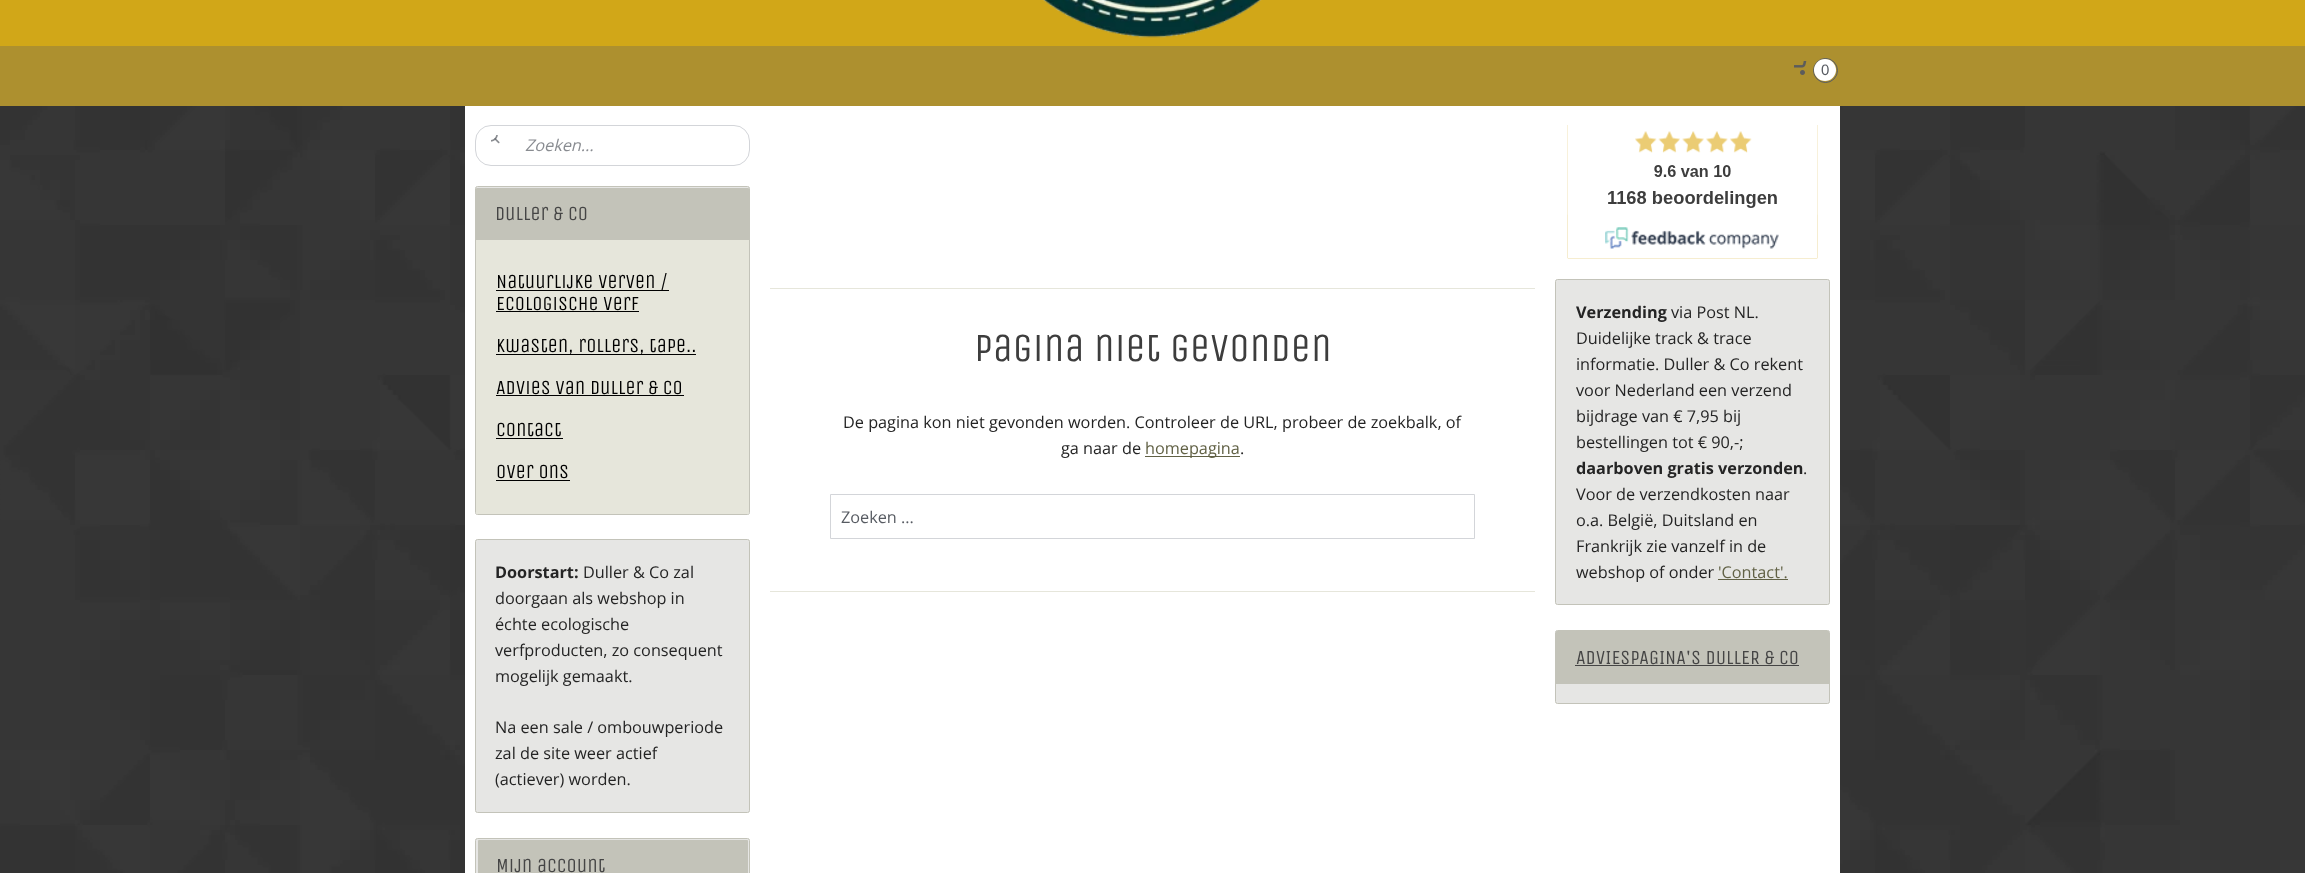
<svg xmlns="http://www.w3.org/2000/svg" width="2305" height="873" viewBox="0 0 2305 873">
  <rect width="100%" height="100%" fill="#fff"/>
  <path d="M0 0h2305v46H0z" fill="#d1a718"/>
  <image x="1042" y="0" width="220" height="38" href="img/1.png"/>
  <path d="M0 46h2305v60H0z" fill="#ad902f"/>
  <image x="1794" y="61" width="13" height="14" href="img/2.png"/>
  <circle cx="1825.5" cy="70.5" r="12" fill="none" stroke="#575b62"/>
  <circle cx="1825" cy="70" r="11" fill="#fff"/>
  <image x="0" y="106" width="2305" height="767" href="img/3.png"/>
  <path d="M465 106h1375v767H465z" fill="#fff"/>
  <rect x="475.5" y="125.5" width="274" height="40" rx="15.5" fill="none" stroke="#d3d5d9"/>
  <image x="491" y="135" width="9" height="9" href="img/4.png"/>
  <rect x="475.5" y="186.5" width="274" height="328" rx="2" fill="#e6e6e4" stroke="#c3c3b9"/>
  <path d="M477 188H748C748.5 188 749 188.5 749 189V240H476V189C476 188.5 476.5 188 477 188Z" fill="#c3c3b9"/>
  <path d="M476 240H749V513C749 513.5 748.5 514 748 514H477C476.5 514 476 513.5 476 513Z" fill="#e6e6db"/>
  <path d="M496 290h173v1H496z" fill="#000"/>
  <path d="M496 311h143v1H496z" fill="#000"/>
  <path d="M496 354h200v1H496z" fill="#000"/>
  <path d="M496 395h188v1H496z" fill="#000"/>
  <path d="M496 438h67v1H496z" fill="#000"/>
  <path d="M496 480h74v1H496z" fill="#000"/>
  <rect x="475.5" y="539.5" width="274" height="273" rx="2" fill="#e6e6e4" stroke="#c3c3b9"/>
  <rect x="475.5" y="838.5" width="274" height="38" rx="2" fill="#e6e6e4" stroke="#c3c3b9"/>
  <path d="M479 840H747C747.5 840 748 840.5 748 841V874H478V841C478 840.5 478.5 840 479 840Z" fill="#c3c3b9"/>
  <path d="M770 288h765v1H770z" fill="#e6e6db"/>
  <path d="M770 591h765v1H770z" fill="#e6e6db"/>
  <path d="M1145 456h95v1H1145z" fill="#616145"/>
  <path d="M830.5 494.5h644v44H830.5z" fill="none" stroke="#d3d5d9"/>
  <image x="1567" y="125" width="251" height="134" href="img/5.png"/>
  <rect x="1555.5" y="279.5" width="274" height="325" rx="2" fill="#e6e6e4" stroke="#c3c3b9"/>
  <path d="M1718 579h70v1H1718z" fill="#616145"/>
  <rect x="1555.5" y="630.5" width="274" height="73" rx="2" fill="#e6e6e4" stroke="#c3c3b9"/>
  <path d="M1557 631H1828C1828.5 631 1829 631.5 1829 632V684H1556V632C1556 631.5 1556.5 631 1557 631Z" fill="#c3c3b9"/>
  <path d="M1575 665h224v1H1575z" fill="#454545"/>
  <text x="1821" y="75" font-family="Liberation Sans" font-size="15" fill="#575b62">0</text>
  <text x="525" y="151" font-family="Open Sans" font-size="16.25" font-style="italic" fill="#898c91">Zoeken...</text>
  <text x="495" y="220" font-family="Unica One" font-size="20" fill="#454545">Duller &amp; Co</text>
  <g font-family="Unica One" font-size="20" fill="#000">
    <text x="496" y="288">Natuurlijke verven /</text>
    <text x="496" y="310">Ecologische verf</text>
    <text x="496" y="352">Kwasten, rollers, tape..</text>
    <text x="496" y="394">Advies van Duller &amp; Co</text>
    <text x="496" y="436">Contact</text>
    <text x="496" y="478">Over ons</text>
  </g>
  <text x="495" y="578" font-family="Open Sans" font-size="16.25" font-weight="bold" fill="#242424">Doorstart:</text>
  <g font-family="Open Sans" font-size="16.25" fill="#242424">
    <text x="583" y="578">Duller &amp; Co zal</text>
    <text x="495" y="604">doorgaan als webshop in</text>
    <text x="495" y="630">échte ecologische</text>
    <text x="495" y="656">verfproducten, zo consequent</text>
    <text x="495" y="682">mogelijk gemaakt.</text>
    <text x="495" y="733">Na een sale / ombouwperiode</text>
    <text x="495" y="759">zal de site weer actief</text>
    <text x="495" y="785">(actiever) worden.</text>
  </g>
  <text x="496" y="872" font-family="Unica One" font-size="20" fill="#454545">Mijn account</text>
  <text x="974" y="361" font-family="Unica One" font-size="40" fill="#3d3d3d">Pagina niet gevonden</text>
  <g font-family="Open Sans" font-size="16.25" fill="#242424">
    <text x="843" y="428">De pagina kon niet gevonden worden. Controleer de URL, probeer de zoekbalk, of</text>
    <text x="1061" y="454">ga naar de</text>
  </g>
  <text x="1145" y="454" font-family="Open Sans" font-size="16.25" fill="#616145">homepagina</text>
  <text x="1240" y="454" font-family="Open Sans" font-size="16.25" fill="#242424">.</text>
  <text x="841" y="523" font-family="Open Sans" font-size="16.25" fill="#575b62">Zoeken ...</text>
  <text x="1576" y="318" font-family="Open Sans" font-size="16.25" font-weight="bold" fill="#242424">Verzending</text>
  <g font-family="Open Sans" font-size="16.25" fill="#242424">
    <text x="1671" y="318">via Post NL.</text>
    <text x="1576" y="344">Duidelijke track &amp; trace</text>
    <text x="1576" y="370">informatie. Duller &amp; Co rekent</text>
    <text x="1576" y="396">voor Nederland een verzend</text>
    <text x="1576" y="422">bijdrage van € 7,95 bij</text>
    <text x="1576" y="448">bestellingen tot € 90,-;</text>
  </g>
  <text x="1576" y="474" font-family="Open Sans" font-size="16.25" font-weight="bold" fill="#242424">daarboven gratis verzonden</text>
  <g font-family="Open Sans" font-size="16.25" fill="#242424">
    <text x="1803" y="474">.</text>
    <text x="1576" y="500">Voor de verzendkosten naar</text>
    <text x="1576" y="526">o.a. België, Duitsland en</text>
    <text x="1576" y="552">Frankrijk zie vanzelf in de</text>
    <text x="1576" y="578">webshop of onder</text>
  </g>
  <text x="1718" y="578" font-family="Open Sans" font-size="16.25" fill="#616145">'Contact'.</text>
  <text x="1576" y="664" font-family="Unica One" font-size="20" fill="#454545">ADVIESPAGINA'S DULLER &amp; CO</text>
</svg>
